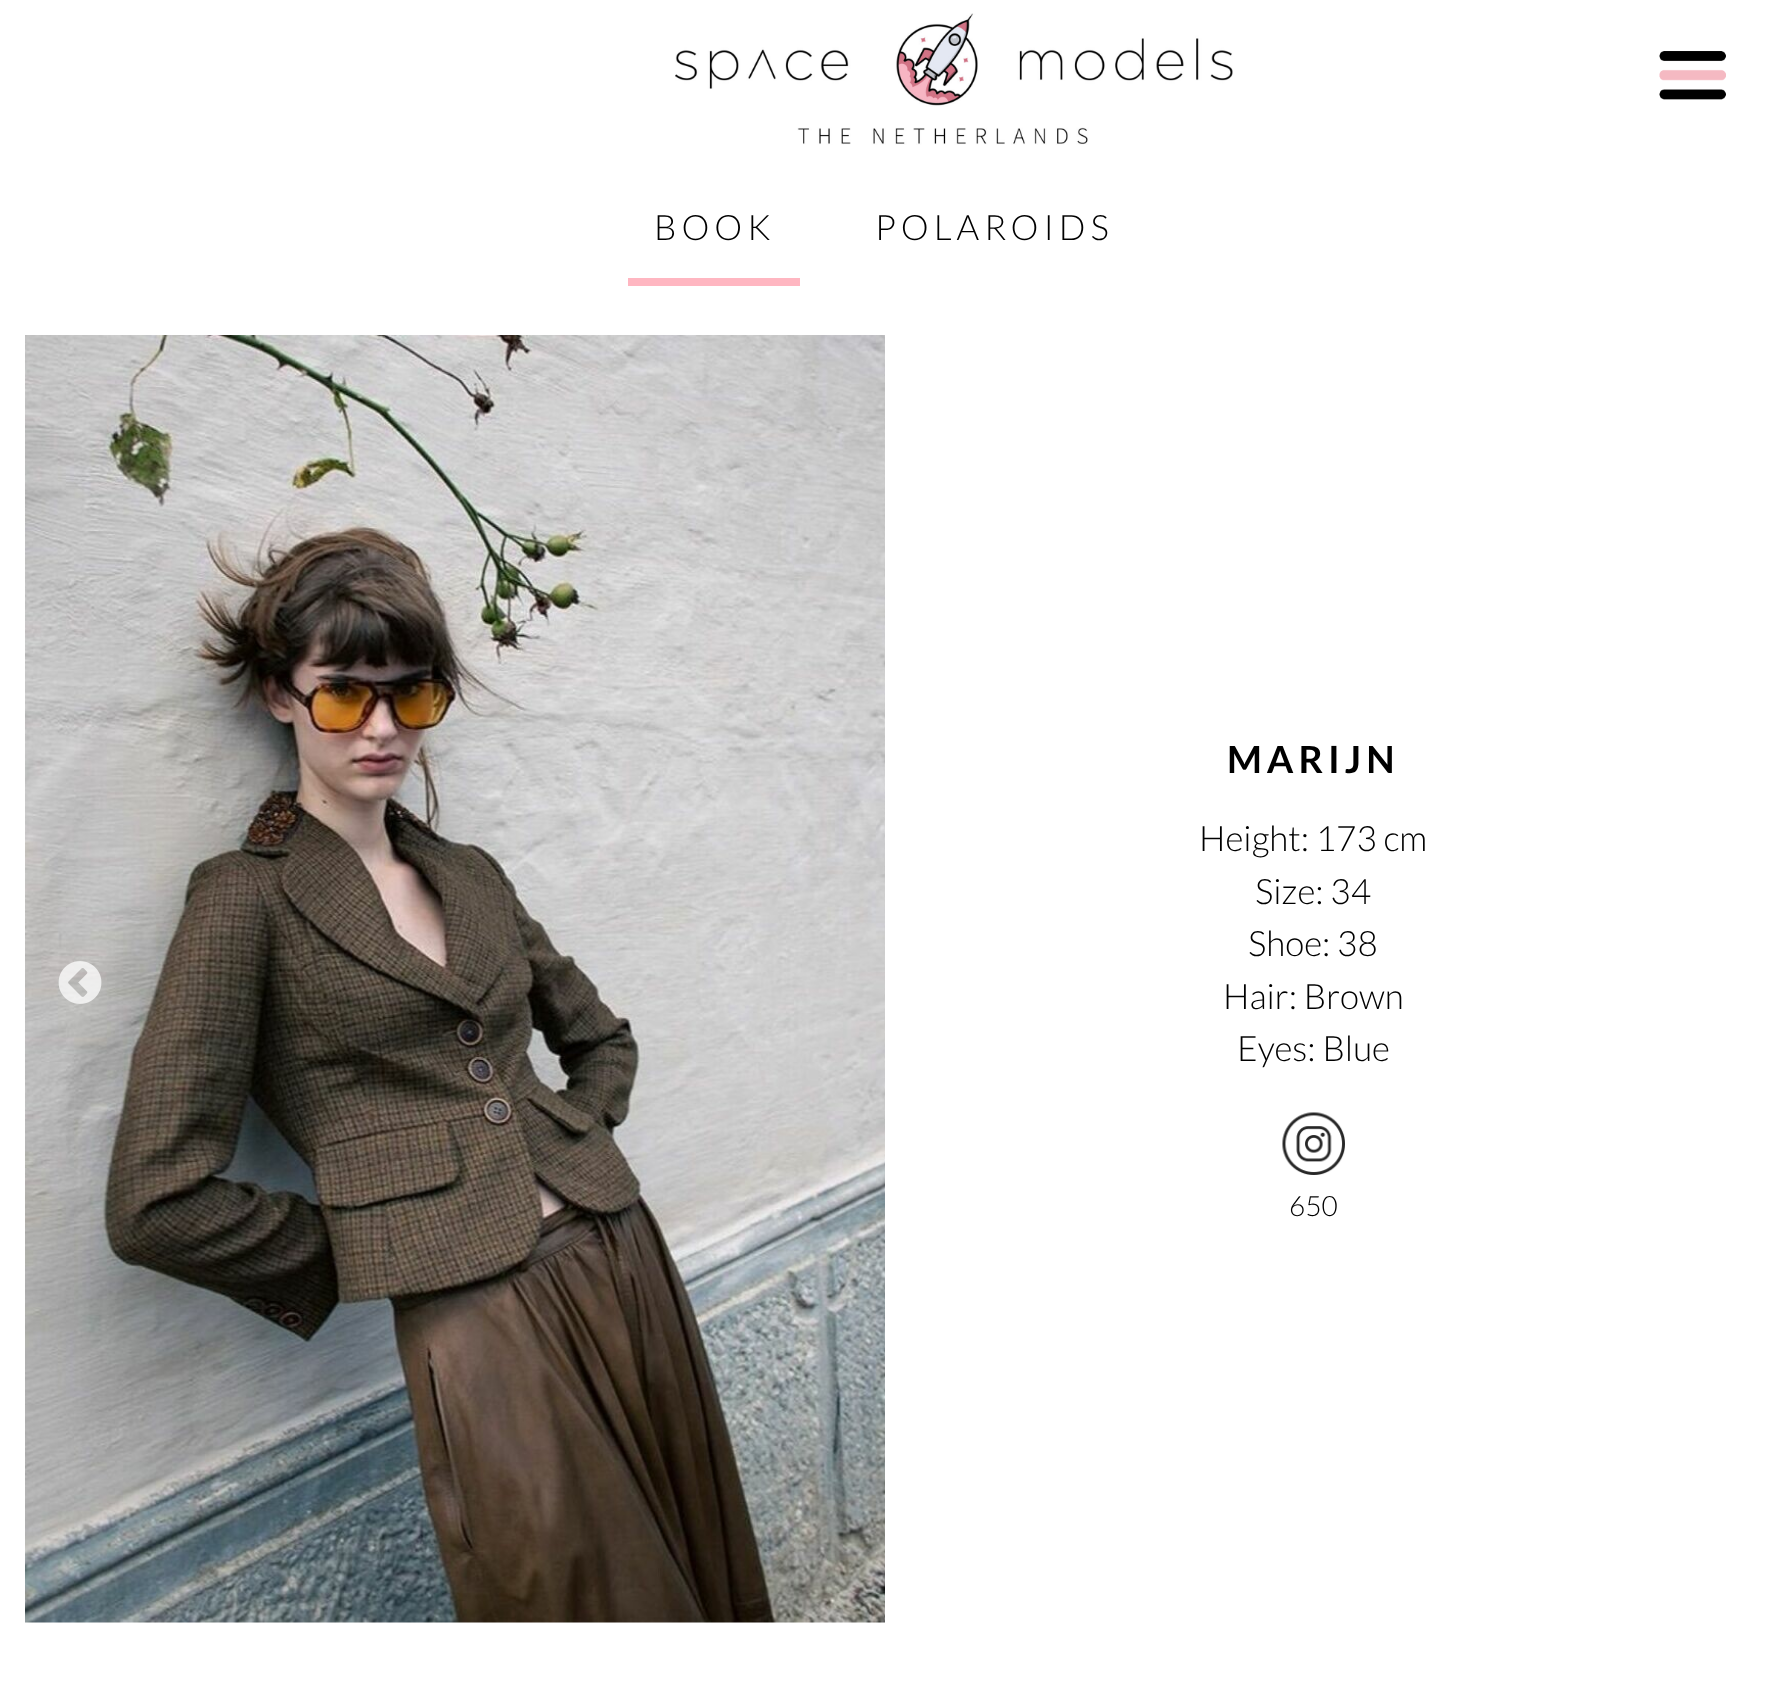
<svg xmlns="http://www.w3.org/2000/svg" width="1766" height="1688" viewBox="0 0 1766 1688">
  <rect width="100%" height="100%" fill="#fff"/>
  <image x="675" y="13" width="558" height="132" href="img/1.png"/>
  <image x="1659" y="51" width="67" height="49" href="img/2.png"/>
  <path d="M628 278h172v8H628z" fill="#ffb6c1"/>
  <image x="25" y="335" width="860" height="1288" href="img/4.png"/>
  <image x="58" y="961" width="44" height="43" href="img/3.png"/>
  <image x="1282" y="1112" width="63" height="63" href="img/5.png"/>
  <g font-family="Lato" font-size="35" font-weight="300" letter-spacing="5" fill="#000">
    <text x="654" y="240">BOOK</text>
    <text x="875" y="240">POLAROIDS</text>
  </g>
  <text x="1227" y="773" font-family="Lato" font-size="37.5" font-weight="bold" letter-spacing="5" fill="#000">MARIJN</text>
  <g font-family="Lato" font-size="35" font-weight="300" fill="#000">
    <text x="1199" y="851">Height: 173 cm</text>
    <text x="1255" y="904">Size: 34</text>
    <text x="1248" y="956">Shoe: 38</text>
    <text x="1223" y="1009">Hair: Brown</text>
    <text x="1237" y="1061">Eyes: Blue</text>
  </g>
  <text x="1289" y="1216" font-family="Lato" font-size="28" font-weight="300" fill="#000">650</text>
</svg>
